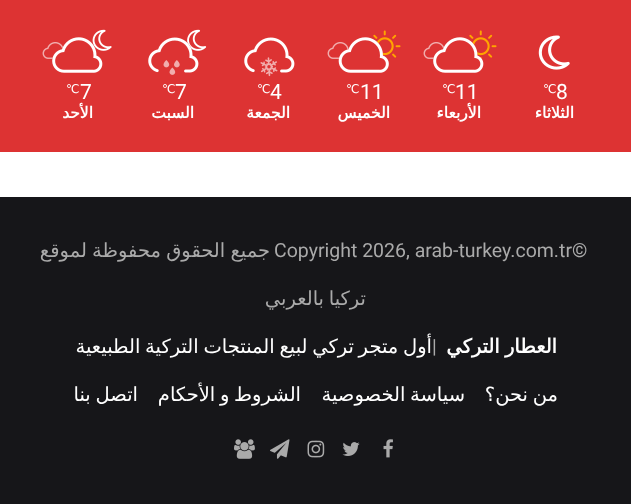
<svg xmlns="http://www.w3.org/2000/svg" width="631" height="504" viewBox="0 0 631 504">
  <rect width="100%" height="100%" fill="#fff"/>
  <path d="M0 0h631v152H0z" fill="#d33"/>
  <image x="538" y="35" width="32" height="35" href="img/1.png"/>
  <image x="469" y="30" width="28" height="30" href="img/2.png"/>
  <image x="423" y="42" width="21" height="17" href="img/4.png"/>
  <image x="433" y="42" width="49" height="20" href="img/5.png"/>
  <image x="433" y="37" width="51" height="36" href="img/3.png"/>
  <image x="373" y="30" width="28" height="28" href="img/6.png"/>
  <image x="327" y="42" width="22" height="17" href="img/8.png"/>
  <image x="338" y="42" width="48" height="20" href="img/9.png"/>
  <image x="338" y="37" width="51" height="36" href="img/7.png"/>
  <image x="244" y="37" width="51" height="36" href="img/10.png"/>
  <image x="260" y="57" width="18" height="20" href="img/11.png"/>
  <image x="187" y="29" width="20" height="22" href="img/12.png"/>
  <image x="187" y="42" width="5" height="7" href="img/14.png"/>
  <image x="148" y="37" width="51" height="36" href="img/13.png"/>
  <image x="174" y="60" width="6" height="8" href="img/15.png"/>
  <image x="163" y="60" width="7" height="8" href="img/16.png"/>
  <image x="169" y="67" width="7" height="8" href="img/17.png"/>
  <image x="92" y="29" width="20" height="22" href="img/18.png"/>
  <image x="42" y="42" width="21" height="17" href="img/4.png"/>
  <image x="52" y="44" width="43" height="15" href="img/20.png"/>
  <image x="52" y="37" width="51" height="36" href="img/19.png"/>
  <path d="M0 197h631v307H0z" fill="#161619"/>
  <image x="383" y="439" width="10" height="19" href="img/21.png"/>
  <image x="342" y="442" width="18" height="14" href="img/22.png"/>
  <image x="307" y="440" width="18" height="18" href="img/23.png"/>
  <image x="270" y="439" width="20" height="20" href="img/24.png"/>
  <image x="234" y="439" width="21" height="20" href="img/25.png"/>
  <text x="556" y="99" font-family="Roboto" font-size="21" fill="#fff">8</text>
  <text x="543" y="93" font-family="DejaVu Sans" font-size="12" fill="#fff">℃</text>
  <text x="574" y="118" font-family="DejaVu Sans" font-size="15.5" font-weight="bold" direction="rtl" fill="#fff">الثلاثاء</text>
  <text x="455" y="99" font-family="Roboto" font-size="21" fill="#fff">11</text>
  <text x="442" y="93" font-family="DejaVu Sans" font-size="12" fill="#fff">℃</text>
  <text x="481" y="118" font-family="DejaVu Sans" font-size="15.5" font-weight="bold" direction="rtl" fill="#fff">الأربعاء</text>
  <text x="360" y="99" font-family="Roboto" font-size="21" fill="#fff">11</text>
  <text x="346" y="93" font-family="DejaVu Sans" font-size="12" fill="#fff">℃</text>
  <text x="390" y="118" font-family="DejaVu Sans" font-size="15.5" font-weight="bold" direction="rtl" fill="#fff">الخميس</text>
  <text x="270" y="99" font-family="Roboto" font-size="21" fill="#fff">4</text>
  <text x="257" y="93" font-family="DejaVu Sans" font-size="12" fill="#fff">℃</text>
  <text x="290" y="118" font-family="DejaVu Sans" font-size="15.5" font-weight="bold" direction="rtl" fill="#fff">الجمعة</text>
  <text x="175" y="99" font-family="Roboto" font-size="21" fill="#fff">7</text>
  <text x="162" y="93" font-family="DejaVu Sans" font-size="12" fill="#fff">℃</text>
  <text x="194" y="118" font-family="DejaVu Sans" font-size="15.5" font-weight="bold" direction="rtl" fill="#fff">السبت</text>
  <text x="80" y="99" font-family="Roboto" font-size="21" fill="#fff">7</text>
  <text x="66" y="93" font-family="DejaVu Sans" font-size="12" fill="#fff">℃</text>
  <text x="93" y="118" font-family="DejaVu Sans" font-size="15.5" font-weight="bold" direction="rtl" fill="#fff">الأحد</text>
  <text x="274" y="257" font-family="Roboto" font-size="19.5" fill="#aaa">Copyright 2026, arab-turkey.com.tr©</text>
  <g font-family="DejaVu Sans" font-size="19.5" direction="rtl" fill="#aaa">
    <text x="270" y="257" word-spacing="-1">جميع الحقوق محفوظة لموقع</text>
    <text x="366" y="305" word-spacing="-1.5">تركيا بالعربي</text>
  </g>
  <text x="557" y="353" word-spacing="-1" font-family="DejaVu Sans" font-size="19.5" font-weight="bold" direction="rtl" fill="#fff">العطار التركي</text>
  <text x="432" y="353" font-family="Roboto" font-size="19.5" fill="#aaa">|</text>
  <g font-family="DejaVu Sans" font-size="19.5" direction="rtl" fill="#fff">
    <text x="432" y="353" word-spacing="-1.5">أول متجر تركي لبيع المنتجات التركية الطبيعية</text>
    <text x="558" y="401" word-spacing="-1.5">من نحن؟</text>
    <text x="465" y="401" word-spacing="-1.5">سياسة الخصوصية</text>
    <text x="301" y="401" word-spacing="-1.5">الشروط و الأحكام</text>
    <text x="138" y="401" word-spacing="-1.5">اتصل بنا</text>
  </g>
</svg>
